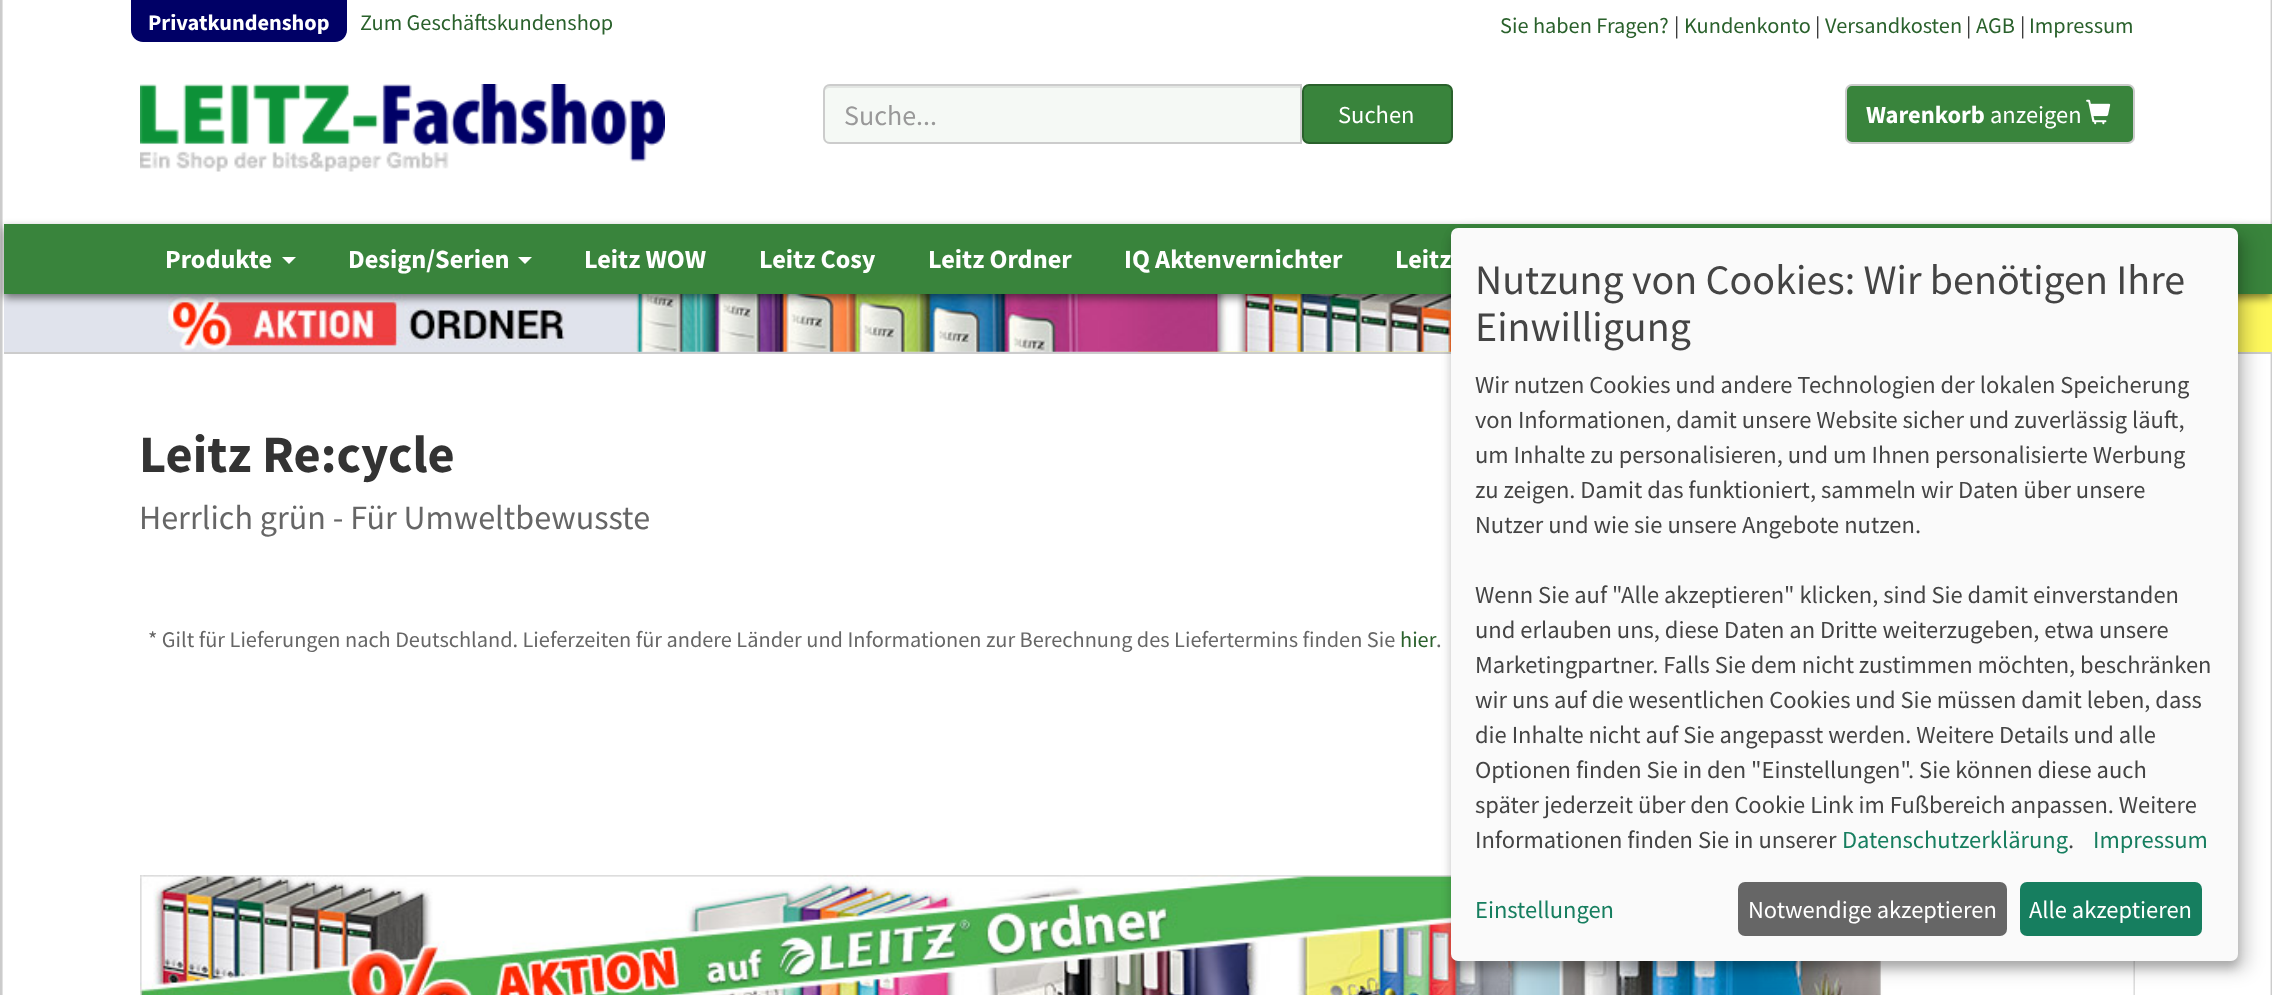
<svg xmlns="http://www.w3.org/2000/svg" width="2272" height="995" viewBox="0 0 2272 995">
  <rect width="100%" height="100%" fill="#f3f3f3"/>
  <image x="0" y="0" width="2272" height="995" href="img/1.png"/>
  <path d="M131 0H347V30C347 36.5 341.5 42 335 42H143C136.5 42 131 36.5 131 30Z" fill="#006"/>
  <image x="140" y="84" width="525" height="88" href="img/2.png"/>
  <path d="M830 84H1302V144H830C826 144 823 141 823 137V91C823 87 826 84 830 84Z" fill="#f5f9f5"/>
  <path d="M830 88H1300V86H829C826 86 824 88 824 91V93C824 90 827 88 830 88Z" fill="#e3e6e3"/>
  <path d="M830 85H1301V143H830C826.5 143 824 140.5 824 137V91C824 87.5 826.5 85 830 85Z" fill="none" stroke="#ccc" stroke-width="2"/>
  <rect x="1303" y="85" width="149" height="58" rx="6" fill="#39843c" stroke="#2a612c" stroke-width="2"/>
  <rect x="1846" y="85" width="288" height="58" rx="6" fill="#39843c" stroke="#ccc" stroke-width="2"/>
  <image x="2086" y="99" width="25" height="26" href="img/3.png"/>
  <path d="M4 294h1134v58H4z" fill="#e0e3ec"/>
  <path d="M1138 294h1134v58H1138z" fill="#fef85c"/>
  <image x="166" y="294" width="1285" height="58" href="img/4.png"/>
  <path d="M4 228h2268v70H4z" fill="#00000080" filter="blur(4.5px)"/>
  <path d="M4 224h2268v70H4z" fill="#39843c"/>
  <path d="M282 257H296L289 264Z" fill="#fff"/>
  <path d="M518 257H532L525 264Z" fill="#fff"/>
  <path d="M4 352h2268v2H4z" fill="#ccc"/>
  <image x="140" y="875" width="1995" height="120" href="img/5.png"/>
  <rect x="1460" y="236" width="787" height="734" rx="7" fill="#00000030" filter="blur(9px)"/>
  <rect x="1451" y="235" width="787" height="733" rx="7" fill="#00000033" filter="blur(5px)"/>
  <rect x="1451" y="228" width="787" height="733" rx="7" fill="#fafafa"/>
  <rect x="1738" y="882" width="269" height="54" rx="7" fill="#666"/>
  <rect x="2020" y="882" width="182" height="54" rx="7" fill="#167e5f"/>
  <text x="148" y="30" font-family="Source Sans Pro" font-size="22.3" font-weight="bold" fill="#fff">Privatkundenshop</text>
  <g font-family="Source Sans Pro" font-size="22.3" fill="#2a612c">
    <text x="360" y="30">Zum Geschäftskundenshop</text>
    <text x="1500" y="33">Sie haben Fragen?</text>
  </g>
  <text x="1674" y="33" font-family="Source Sans Pro" font-size="22.3" fill="#333">|</text>
  <text x="1684" y="33" font-family="Source Sans Pro" font-size="22.3" fill="#2a612c">Kundenkonto</text>
  <text x="1815" y="33" font-family="Source Sans Pro" font-size="22.3" fill="#333">|</text>
  <text x="1825" y="33" font-family="Source Sans Pro" font-size="22.3" fill="#2a612c">Versandkosten</text>
  <text x="1966" y="33" font-family="Source Sans Pro" font-size="22.3" fill="#333">|</text>
  <text x="1976" y="33" font-family="Source Sans Pro" font-size="22.3" fill="#2a612c">AGB</text>
  <text x="2020" y="33" font-family="Source Sans Pro" font-size="22.3" fill="#333">|</text>
  <text x="2029" y="33" font-family="Source Sans Pro" font-size="22.3" fill="#2a612c">Impressum</text>
  <text x="844" y="125" font-family="Source Sans Pro" font-size="28" fill="#999">Suche...</text>
  <text x="1338" y="123" font-family="Source Sans Pro" font-size="24.5" fill="#fff">Suchen</text>
  <text x="1866" y="123" font-family="Source Sans Pro" font-size="24.5" font-weight="bold" fill="#fff">Warenkorb</text>
  <text x="1990" y="123" font-family="Source Sans Pro" font-size="24.5" fill="#fff">anzeigen</text>
  <g font-family="Source Sans Pro" font-size="26.25" font-weight="bold" fill="#fff">
    <text x="165" y="268">Produkte</text>
    <text x="348" y="268">Design/Serien</text>
    <text x="584" y="268">Leitz WOW</text>
    <text x="759" y="268">Leitz Cosy</text>
    <text x="928" y="268">Leitz Ordner</text>
    <text x="1124" y="268">IQ Aktenvernichter</text>
    <text x="1395" y="268">Leitz</text>
  </g>
  <text x="139" y="472" font-family="Source Sans Pro" font-size="52.5" font-weight="bold" fill="#333">Leitz Re:cycle</text>
  <text x="139" y="529" font-family="Source Sans Pro" font-size="34.1" fill="#666">Herrlich grün - Für Umweltbewusste</text>
  <text x="148" y="647" font-family="Source Sans Pro" font-size="22.3" fill="#666">* Gilt für Lieferungen nach Deutschland. Lieferzeiten für andere Länder und Informationen zur Berechnung des Liefertermins finden Sie</text>
  <text x="1400" y="647" font-family="Source Sans Pro" font-size="22.3" fill="#2a612c">hier</text>
  <text x="1436" y="647" font-family="Source Sans Pro" font-size="22.3" fill="#666">.</text>
  <g font-family="Source Sans Pro" font-size="42" fill="#444">
    <text x="1475" y="294">Nutzung von Cookies: Wir benötigen Ihre</text>
    <text x="1475" y="341">Einwilligung</text>
  </g>
  <g font-family="Source Sans Pro" font-size="24.5" fill="#444">
    <text x="1475" y="393">Wir nutzen Cookies und andere Technologien der lokalen Speicherung</text>
    <text x="1475" y="428">von Informationen, damit unsere Website sicher und zuverlässig läuft,</text>
    <text x="1475" y="463">um Inhalte zu personalisieren, und um Ihnen personalisierte Werbung</text>
    <text x="1475" y="498">zu zeigen. Damit das funktioniert, sammeln wir Daten über unsere</text>
    <text x="1475" y="533">Nutzer und wie sie unsere Angebote nutzen.</text>
    <text x="1475" y="603">Wenn Sie auf "Alle akzeptieren" klicken, sind Sie damit einverstanden</text>
    <text x="1475" y="638">und erlauben uns, diese Daten an Dritte weiterzugeben, etwa unsere</text>
    <text x="1475" y="673">Marketingpartner. Falls Sie dem nicht zustimmen möchten, beschränken</text>
    <text x="1475" y="708">wir uns auf die wesentlichen Cookies und Sie müssen damit leben, dass</text>
    <text x="1475" y="743">die Inhalte nicht auf Sie angepasst werden. Weitere Details und alle</text>
    <text x="1475" y="778">Optionen finden Sie in den "Einstellungen". Sie können diese auch</text>
    <text x="1475" y="813">später jederzeit über den Cookie Link im Fußbereich anpassen. Weitere</text>
    <text x="1475" y="848">Informationen finden Sie in unserer</text>
  </g>
  <text x="1842" y="848" font-family="Source Sans Pro" font-size="24.5" fill="#167e5f">Datenschutzerklärung</text>
  <text x="2068" y="848" font-family="Source Sans Pro" font-size="24.5" fill="#444">.</text>
  <g font-family="Source Sans Pro" font-size="24.5" fill="#167e5f">
    <text x="2093" y="848">Impressum</text>
    <text x="1475" y="918">Einstellungen</text>
  </g>
  <g font-family="Source Sans Pro" font-size="24.5" fill="#fff">
    <text x="1748" y="918">Notwendige akzeptieren</text>
    <text x="2029" y="918">Alle akzeptieren</text>
  </g>
</svg>
